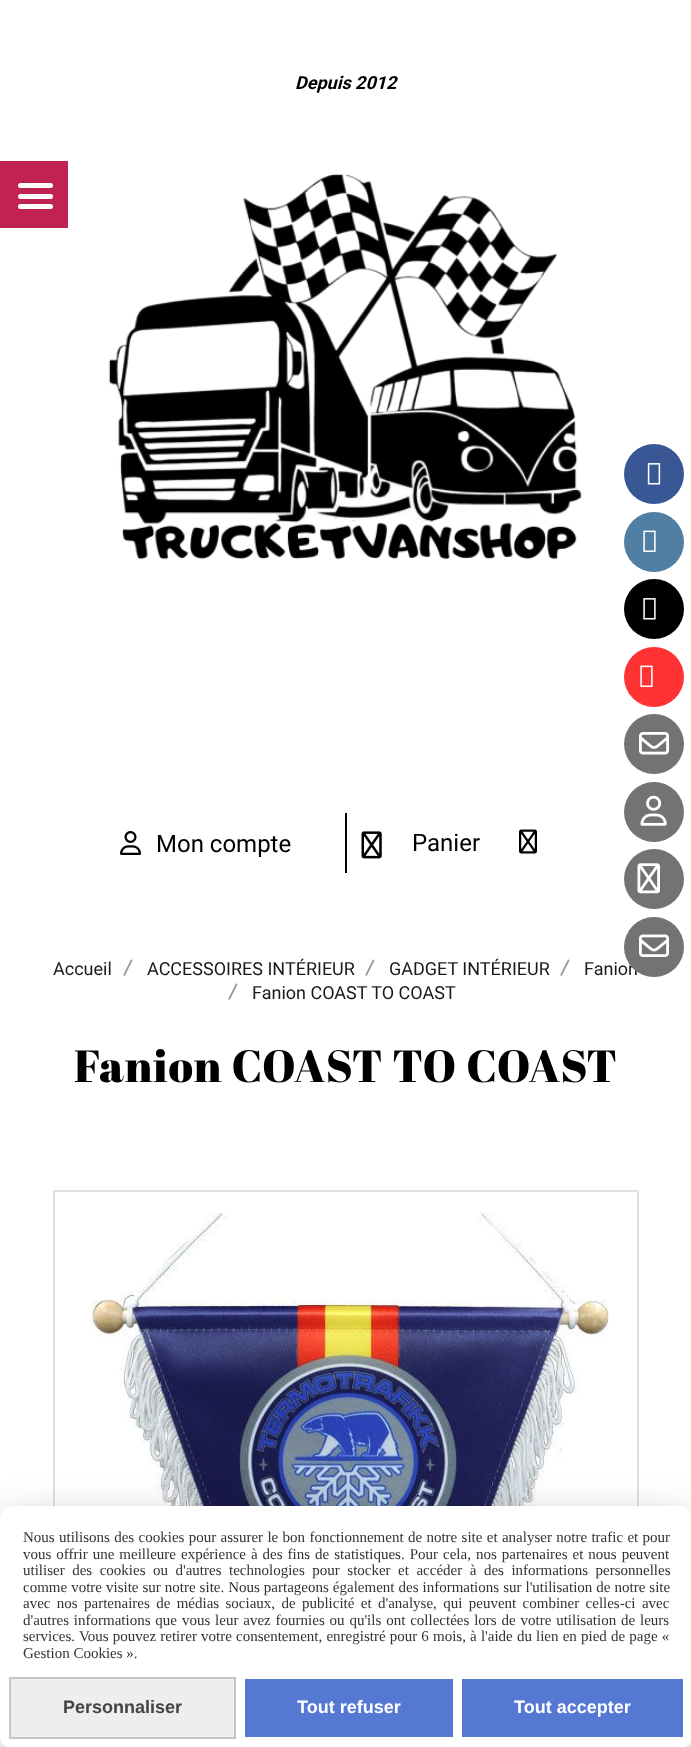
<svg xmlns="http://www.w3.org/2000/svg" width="691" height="1747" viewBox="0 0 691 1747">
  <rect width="100%" height="100%" fill="#fff"/>
  <path d="M0 161h68v67H0z" fill="#c02252"/>
  <rect x="18" y="183" width="35" height="5" rx="2.5" fill="#fff"/>
  <rect x="18" y="194" width="35" height="5" rx="2.5" fill="#fff"/>
  <rect x="18" y="204" width="35" height="5" rx="2.5" fill="#fff"/>
  <image x="108" y="173" width="474" height="387" href="img/1.png"/>
  <path d="M345 813h2v60H345z" fill="#000"/>
  <image x="120" y="831" width="21" height="24" href="img/2.png"/>
  <image x="361" y="831" width="21" height="28" href="img/3.png"/>
  <image x="519" y="829" width="18" height="25" href="img/4.png"/>
  <path d="M54 1191h584v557H54z" fill="none" stroke="#e1e1e1" stroke-width="2"/>
  <image x="91" y="1213" width="518" height="293" href="img/5.png"/>
  <circle cx="654" cy="474" r="30" fill="#3a5795"/>
  <image x="647" y="463" width="14" height="22" href="img/6.png"/>
  <circle cx="654" cy="542" r="30" fill="#517fa4"/>
  <image x="643" y="530" width="13" height="22" href="img/7.png"/>
  <circle cx="654" cy="609" r="30" fill="#000"/>
  <image x="643" y="598" width="13" height="22" href="img/8.png"/>
  <circle cx="654" cy="677" r="30" fill="#f33"/>
  <image x="640" y="665" width="13" height="22" href="img/9.png"/>
  <circle cx="654" cy="744" r="30" fill="#737373"/>
  <image x="639" y="732" width="30" height="23" href="img/10.png"/>
  <circle cx="654" cy="812" r="30" fill="#737373"/>
  <image x="640" y="795" width="27" height="31" href="img/11.png"/>
  <circle cx="654" cy="879" r="30" fill="#737373"/>
  <image x="637" y="863" width="23" height="31" href="img/12.png"/>
  <rect y="1509" width="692" height="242" rx="12" fill="#0000000d" filter="blur(4.5px)"/>
  <rect y="1512" width="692" height="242" rx="12" fill="#00000026" filter="blur(18px)"/>
  <rect y="1506" width="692" height="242" rx="12" fill="#fff"/>
  <path d="M10 1678h225v60H10z" fill="#eee" stroke="#c5c5c5" stroke-width="2"/>
  <path d="M245 1679h208v58H245z" fill="#5579d2"/>
  <path d="M462 1679h221v58H462z" fill="#5579d2"/>
  <text x="295" y="89" font-family="Roboto" font-size="18" font-weight="bold" font-style="italic" fill="#000">Depuis 2012</text>
  <g font-family="Roboto" font-size="24" fill="#000">
    <text x="156" y="852">Mon compte</text>
    <text x="412" y="851">Panier</text>
  </g>
  <text x="53" y="975" font-family="Roboto" font-size="18" fill="#1a1a1a">Accueil</text>
  <text x="123" y="975" font-family="Dosis" font-size="20" font-weight="bold" fill="#999">/</text>
  <text x="147" y="975" font-family="Roboto" font-size="18" fill="#1a1a1a">ACCESSOIRES INTÉRIEUR</text>
  <text x="365" y="975" font-family="Dosis" font-size="20" font-weight="bold" fill="#999">/</text>
  <text x="389" y="975" font-family="Roboto" font-size="18" fill="#1a1a1a">GADGET INTÉRIEUR</text>
  <text x="560" y="975" font-family="Dosis" font-size="20" font-weight="bold" fill="#999">/</text>
  <text x="584" y="975" font-family="Roboto" font-size="18" fill="#1a1a1a">Fanion</text>
  <text x="228" y="999" font-family="Dosis" font-size="20" font-weight="bold" fill="#999">/</text>
  <text x="252" y="999" font-family="Roboto" font-size="18" fill="#1a1a1a">Fanion COAST TO COAST</text>
  <text x="74" y="1082" font-family="Abril Fatface" font-size="45" letter-spacing="0.9" fill="#000">Fanion COAST TO COAST</text>
  <circle cx="654" cy="947" r="30" fill="#737373"/>
  <image x="639" y="934" width="30" height="23" href="img/13.png"/>
  <g font-family="Liberation Serif" font-size="15" fill="#333">
    <text x="23" y="1542" word-spacing="0.6">Nous utilisons des cookies pour assurer le bon fonctionnement de notre site et analyser notre trafic et pour</text>
    <text x="23" y="1559" word-spacing="1.25">vous offrir une meilleure expérience à des fins de statistiques. Pour cela, nos partenaires et nous peuvent</text>
    <text x="23" y="1575" word-spacing="3.75">utiliser des cookies ou d'autres technologies pour stocker et accéder à des informations personnelles</text>
    <text x="23" y="1592" word-spacing="0.25">comme votre visite sur notre site. Nous partageons également des informations sur l'utilisation de notre site</text>
    <text x="23" y="1608" word-spacing="2.6">avec nos partenaires de médias sociaux, de publicité et d'analyse, qui peuvent combiner celles-ci avec</text>
    <text x="23" y="1625" word-spacing="1.1">d'autres informations que vous leur avez fournies ou qu'ils ont collectées lors de votre utilisation de leurs</text>
    <text x="23" y="1641" word-spacing="0.4">services. Vous pouvez retirer votre consentement, enregistré pour 6 mois, à l'aide du lien en pied de page «</text>
    <text x="23" y="1658">Gestion Cookies ».</text>
  </g>
  <text x="63" y="1713" font-family="Liberation Sans" font-size="18" font-weight="bold" fill="#444">Personnaliser</text>
  <g font-family="Liberation Sans" font-size="18" font-weight="bold" fill="#fff">
    <text x="297" y="1713">Tout refuser</text>
    <text x="514" y="1713">Tout accepter</text>
  </g>
</svg>
